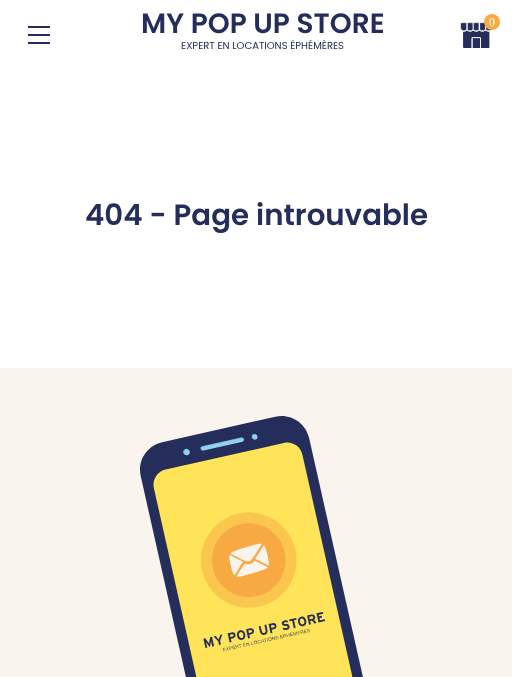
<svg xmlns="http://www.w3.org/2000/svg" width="512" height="677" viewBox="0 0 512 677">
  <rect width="100%" height="100%" fill="#fff"/>
  <image x="460" y="22" width="32" height="26" href="img/1.png"/>
  <circle cx="492" cy="22" r="8" fill="#f7aa42"/>
  <image x="28" y="26" width="22" height="18" href="img/2.png"/>
  <path d="M0 368h512v309H0z" fill="#f9f4ed"/>
  <image x="140" y="416" width="223" height="261" href="img/3.png"/>
  <text x="141" y="33" font-family="Poppins" font-size="28" font-weight="600" fill="#252e5b">MY POP UP STORE</text>
  <text x="181" y="49" font-family="Poppins" font-size="10" fill="#252e5b">EXPERT EN LOCATIONS ÉPHÉMÈRES</text>
  <text x="489" y="26" font-family="Liberation Serif" font-size="12" fill="#fff">0</text>
  <text x="85" y="225" font-family="Poppins" font-size="29.25" font-weight="600" fill="#252e5b">404 - Page introuvable</text>
</svg>
